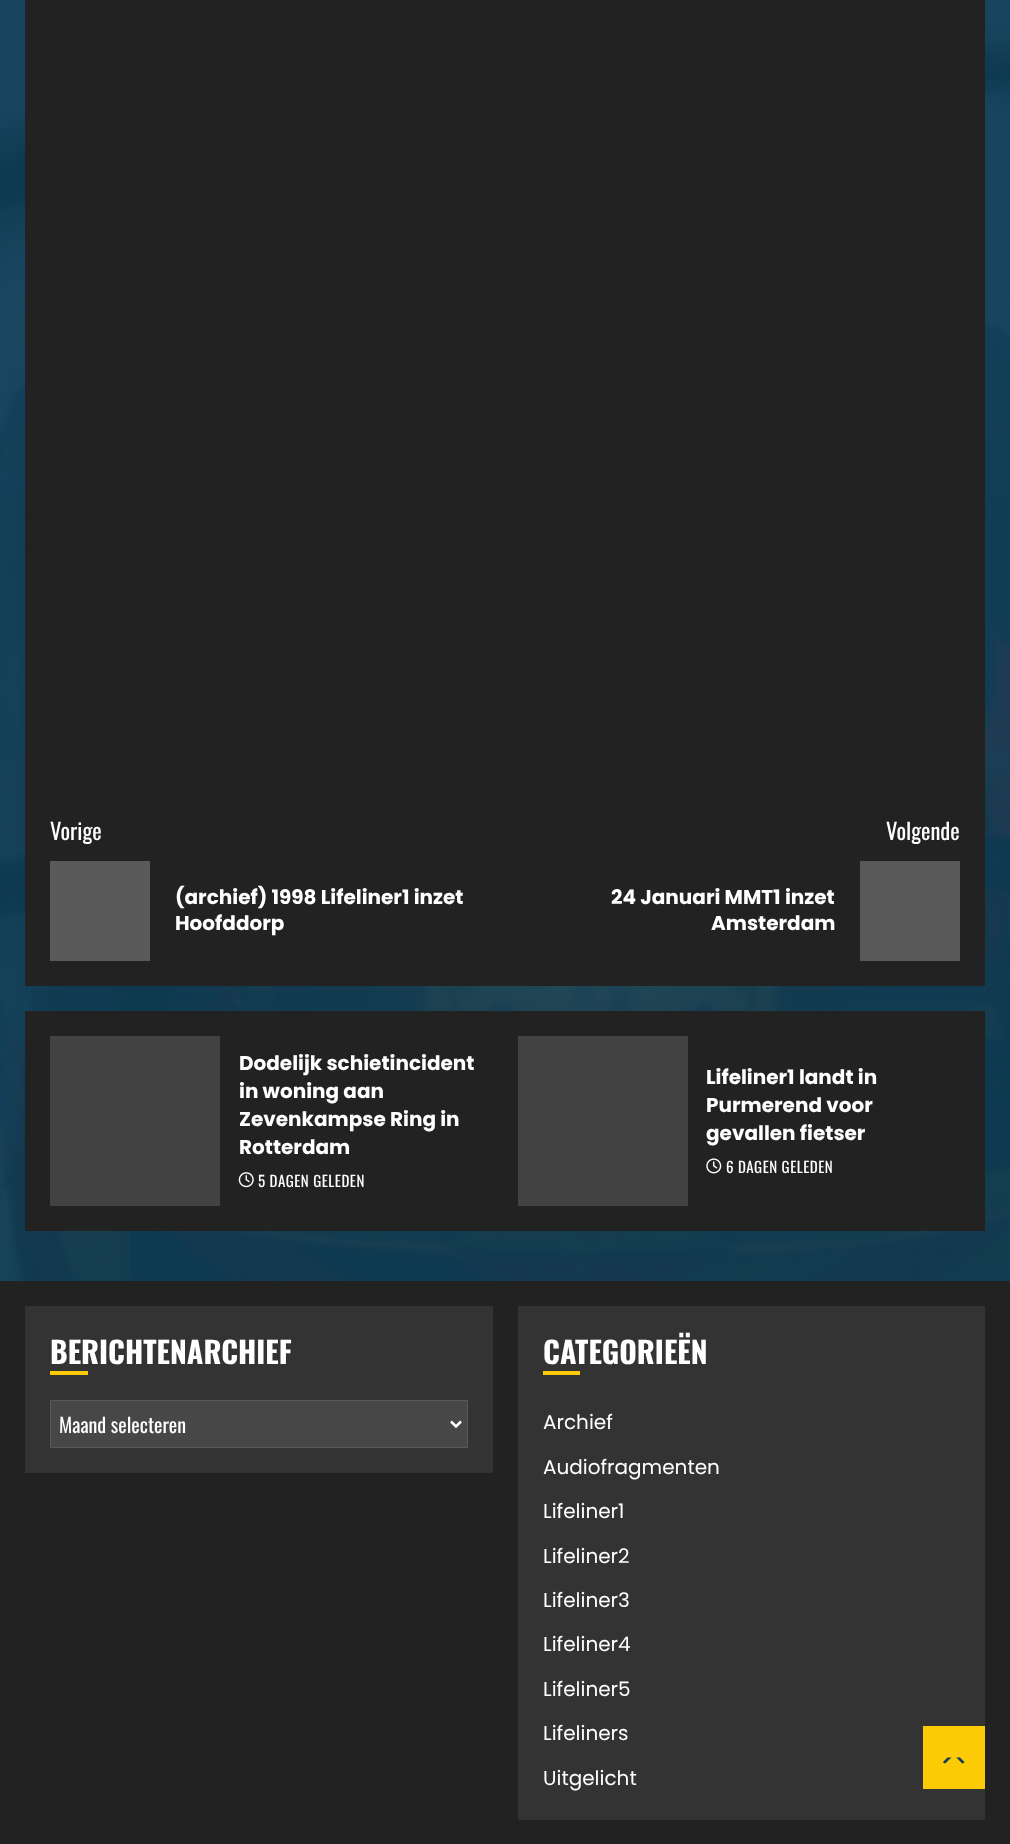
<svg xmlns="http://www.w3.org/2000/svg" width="1010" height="1844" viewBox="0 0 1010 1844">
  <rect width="100%" height="100%" fill="#fff"/>
  <image x="0" y="0" width="1010" height="1281" href="img/1.png"/>
  <path d="M25 0h960v986H25z" fill="#222"/>
  <path d="M50 861h100v100H50z" fill="#595959"/>
  <path d="M860 861h100v100H860z" fill="#595959"/>
  <path d="M25 1011h960v220H25z" fill="#222"/>
  <path d="M50 1036h170v170H50z" fill="#424242"/>
  <image x="238" y="1172" width="16" height="16" href="img/2.png"/>
  <path d="M518 1036h170v170H518z" fill="#424242"/>
  <image x="706" y="1158" width="16" height="16" href="img/3.png"/>
  <path d="M0 1281h1010v563H0z" fill="#222"/>
  <path d="M25 1306h468v167H25z" fill="#333"/>
  <path d="M50 1371h38v4H50z" fill="#fccb05"/>
  <path d="M50.5 1400.5h417v47H50.5z" fill="#474747" stroke="#595959"/>
  <path d="M451 1421.5L456 1426.5L461 1421.5" fill="none" stroke="#fff" stroke-width="2.5"/>
  <path d="M518 1306h467v514H518z" fill="#333"/>
  <path d="M543 1371h37v4H543z" fill="#fccb05"/>
  <path d="M923 1726h62v63H923z" fill="#fccb05"/>
  <path d="M946 1764C944.5 1763.5 943.5 1763 943 1762L947.5 1757.5H960L964.5 1762C963.5 1763 963 1763.5 961.5 1764Z" fill="#0d3e58"/>
  <path d="M966 1767.5H941L954 1755Z" fill="#fccb05"/>
  <text x="50" y="840" font-family="Oswald" font-size="22.5" fill="#fff">Vorige</text>
  <g font-family="Poppins" font-size="20" font-weight="bold" fill="#fff">
    <text x="175" y="904">(archief) 1998 Lifeliner1 inzet</text>
    <text x="175" y="930">Hoofddorp</text>
  </g>
  <text x="886" y="840" font-family="Oswald" font-size="22.5" fill="#fff">Volgende</text>
  <g font-family="Poppins" font-size="20" font-weight="bold" fill="#fff">
    <text x="611" y="904">24 Januari MMT1 inzet</text>
    <text x="711" y="930">Amsterdam</text>
    <text x="239" y="1070">Dodelijk schietincident</text>
    <text x="239" y="1098">in woning aan</text>
    <text x="239" y="1126">Zevenkampse Ring in</text>
    <text x="239" y="1154">Rotterdam</text>
  </g>
  <text x="258" y="1187" font-family="Oswald" font-size="15" letter-spacing="0.5" fill="#fff">5 DAGEN GELEDEN</text>
  <g font-family="Poppins" font-size="20" font-weight="bold" fill="#fff">
    <text x="706" y="1084">Lifeliner1 landt in</text>
    <text x="706" y="1112">Purmerend voor</text>
    <text x="706" y="1140">gevallen fietser</text>
  </g>
  <text x="726" y="1173" font-family="Oswald" font-size="15" letter-spacing="0.5" fill="#fff">6 DAGEN GELEDEN</text>
  <text x="50" y="1364" font-family="Oswald" font-size="30" font-weight="bold" fill="#fff">BERICHTENARCHIEF</text>
  <text x="59" y="1433" font-family="Oswald" font-size="20" fill="#fff">Maand selecteren</text>
  <text x="543" y="1364" font-family="Oswald" font-size="30" font-weight="bold" fill="#fff">CATEGORIEËN</text>
  <g font-family="Poppins" font-size="20" fill="#fff">
    <text x="543" y="1429">Archief</text>
    <text x="543" y="1474">Audiofragmenten</text>
    <text x="543" y="1518">Lifeliner1</text>
    <text x="543" y="1563">Lifeliner2</text>
    <text x="543" y="1607">Lifeliner3</text>
    <text x="543" y="1651">Lifeliner4</text>
    <text x="543" y="1696">Lifeliner5</text>
    <text x="543" y="1740">Lifeliners</text>
    <text x="543" y="1785">Uitgelicht</text>
  </g>
</svg>
